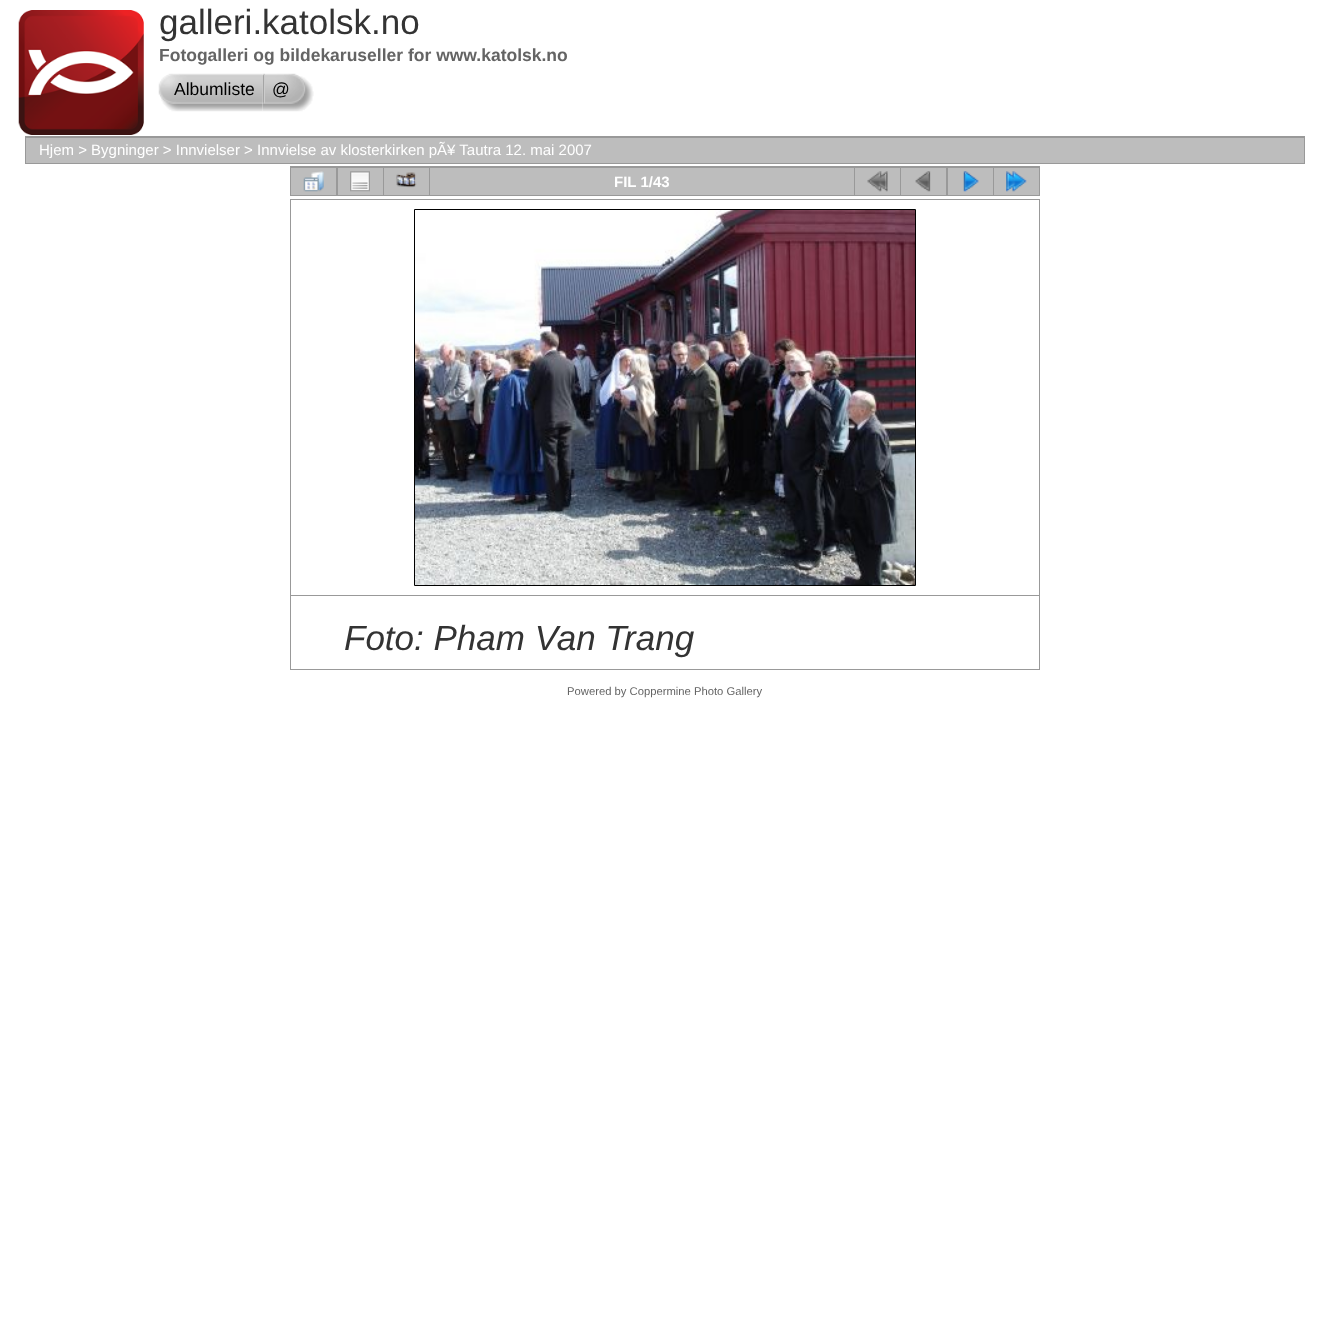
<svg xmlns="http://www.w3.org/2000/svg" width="1329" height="1322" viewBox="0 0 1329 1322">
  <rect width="100%" height="100%" fill="#fff"/>
  <image x="18" y="10" width="126" height="125" href="img/1.png"/>
  <image x="262" y="73" width="3" height="39" href="img/3.png"/>
  <image x="158" y="73" width="105" height="39" href="img/2.png"/>
  <image x="265" y="73" width="49" height="39" href="img/4.png"/>
  <path d="M25 136h1280v28H25z" fill="#999"/>
  <path d="M26 138h1278v25H26z" fill="#bdbdbd"/>
  <path d="M290 166h750v30H290z" fill="#999"/>
  <path d="M291 168h45v27H291z" fill="#bdbdbd"/>
  <image x="303" y="171" width="21" height="21" href="img/5.png"/>
  <path d="M338 168h45v27H338z" fill="#bdbdbd"/>
  <image x="350" y="171" width="20" height="21" href="img/6.png"/>
  <path d="M384 168h45v27H384z" fill="#bdbdbd"/>
  <image x="396" y="172" width="21" height="16" href="img/7.png"/>
  <path d="M430 168h424v27H430z" fill="#bdbdbd"/>
  <path d="M855 168h45v27H855z" fill="#bdbdbd"/>
  <image x="867" y="171" width="21" height="21" href="img/8.png"/>
  <path d="M901 168h45v27H901z" fill="#bdbdbd"/>
  <image x="915" y="171" width="16" height="21" href="img/9.png"/>
  <path d="M948 168h45v27H948z" fill="#bdbdbd"/>
  <image x="963" y="171" width="16" height="21" href="img/10.png"/>
  <path d="M994 168h45v27H994z" fill="#bdbdbd"/>
  <image x="1006" y="171" width="21" height="21" href="img/11.png"/>
  <path d="M290 199h750v471H290z" fill="#999"/>
  <path d="M291 200h748v395H291z" fill="#fff"/>
  <path d="M414.5 209.5h501v376H414.5z" fill="none" stroke="#000"/>
  <image x="415" y="210" width="500" height="375" href="img/12.png"/>
  <path d="M291 596h748v73H291z" fill="#fff"/>
  <text x="159" y="34" font-family="Liberation Sans" font-size="35" fill="#333">galleri.katolsk.no</text>
  <text x="159" y="61" font-family="Liberation Sans" font-size="17.5" font-weight="bold" fill="#646464">Fotogalleri og bildekaruseller for www.katolsk.no</text>
  <g font-family="Liberation Sans" font-size="17.5" fill="#000">
    <text x="174" y="95">Albumliste</text>
    <text x="272" y="95">@</text>
  </g>
  <text x="39" y="155" font-family="Liberation Sans" font-size="15" fill="#fff">Hjem &gt; Bygninger &gt; Innvielser &gt; Innvielse av klosterkirken pÃ¥ Tautra 12. mai 2007</text>
  <text x="614" y="187" font-family="Liberation Sans" font-size="15" font-weight="bold" fill="#fff">FIL 1/43</text>
  <text x="344" y="650" font-family="Liberation Sans" font-size="35" font-style="italic" fill="#333">Foto: Pham Van Trang</text>
  <text x="567" y="695" font-family="Liberation Sans" font-size="11.25" fill="#646464">Powered by Coppermine Photo Gallery</text>
</svg>
